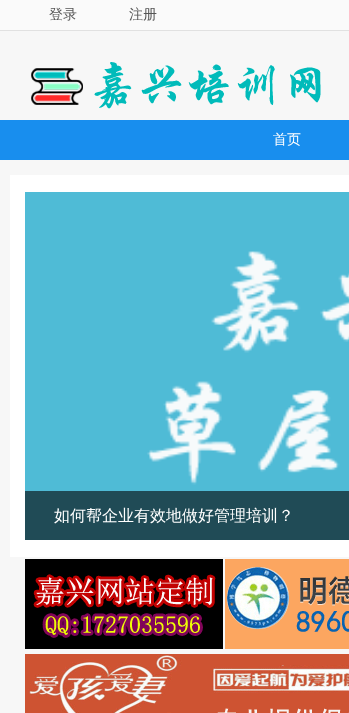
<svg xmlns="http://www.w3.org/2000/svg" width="349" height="713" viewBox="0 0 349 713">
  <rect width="100%" height="100%" fill="#f7f7f7"/>
  <path d="M0 0h349v30H0z" fill="#fafafa"/>
  <path d="M0 30h349v1H0z" fill="#e1e1e1"/>
  <image x="31" y="62" width="290" height="47" href="img/1.png"/>
  <path d="M0 120h349v40H0z" fill="#188eee"/>
  <path d="M10 175h339v382H10z" fill="#fff"/>
  <image x="25" y="192" width="324" height="299" href="img/2.png"/>
  <path d="M25 491h324v49H25z" fill="#204b56"/>
  <image x="25" y="559" width="198" height="90" href="img/3.png"/>
  <image x="225" y="559" width="124" height="90" href="img/4.png"/>
  <image x="25" y="654" width="324" height="59" href="img/5.png"/>
  <g font-family="WenQuanYi Zen Hei" font-size="14" font-weight="500" fill="#555">
    <text x="49" y="19">登录</text>
    <text x="129" y="19">注册</text>
  </g>
  <text x="273" y="144" font-family="WenQuanYi Zen Hei" font-size="14" font-weight="500" fill="#fff">首页</text>
  <text x="54" y="521" font-family="WenQuanYi Zen Hei" font-size="16" font-weight="500" fill="#fff">如何帮企业有效地做好管理培训？</text>
</svg>
